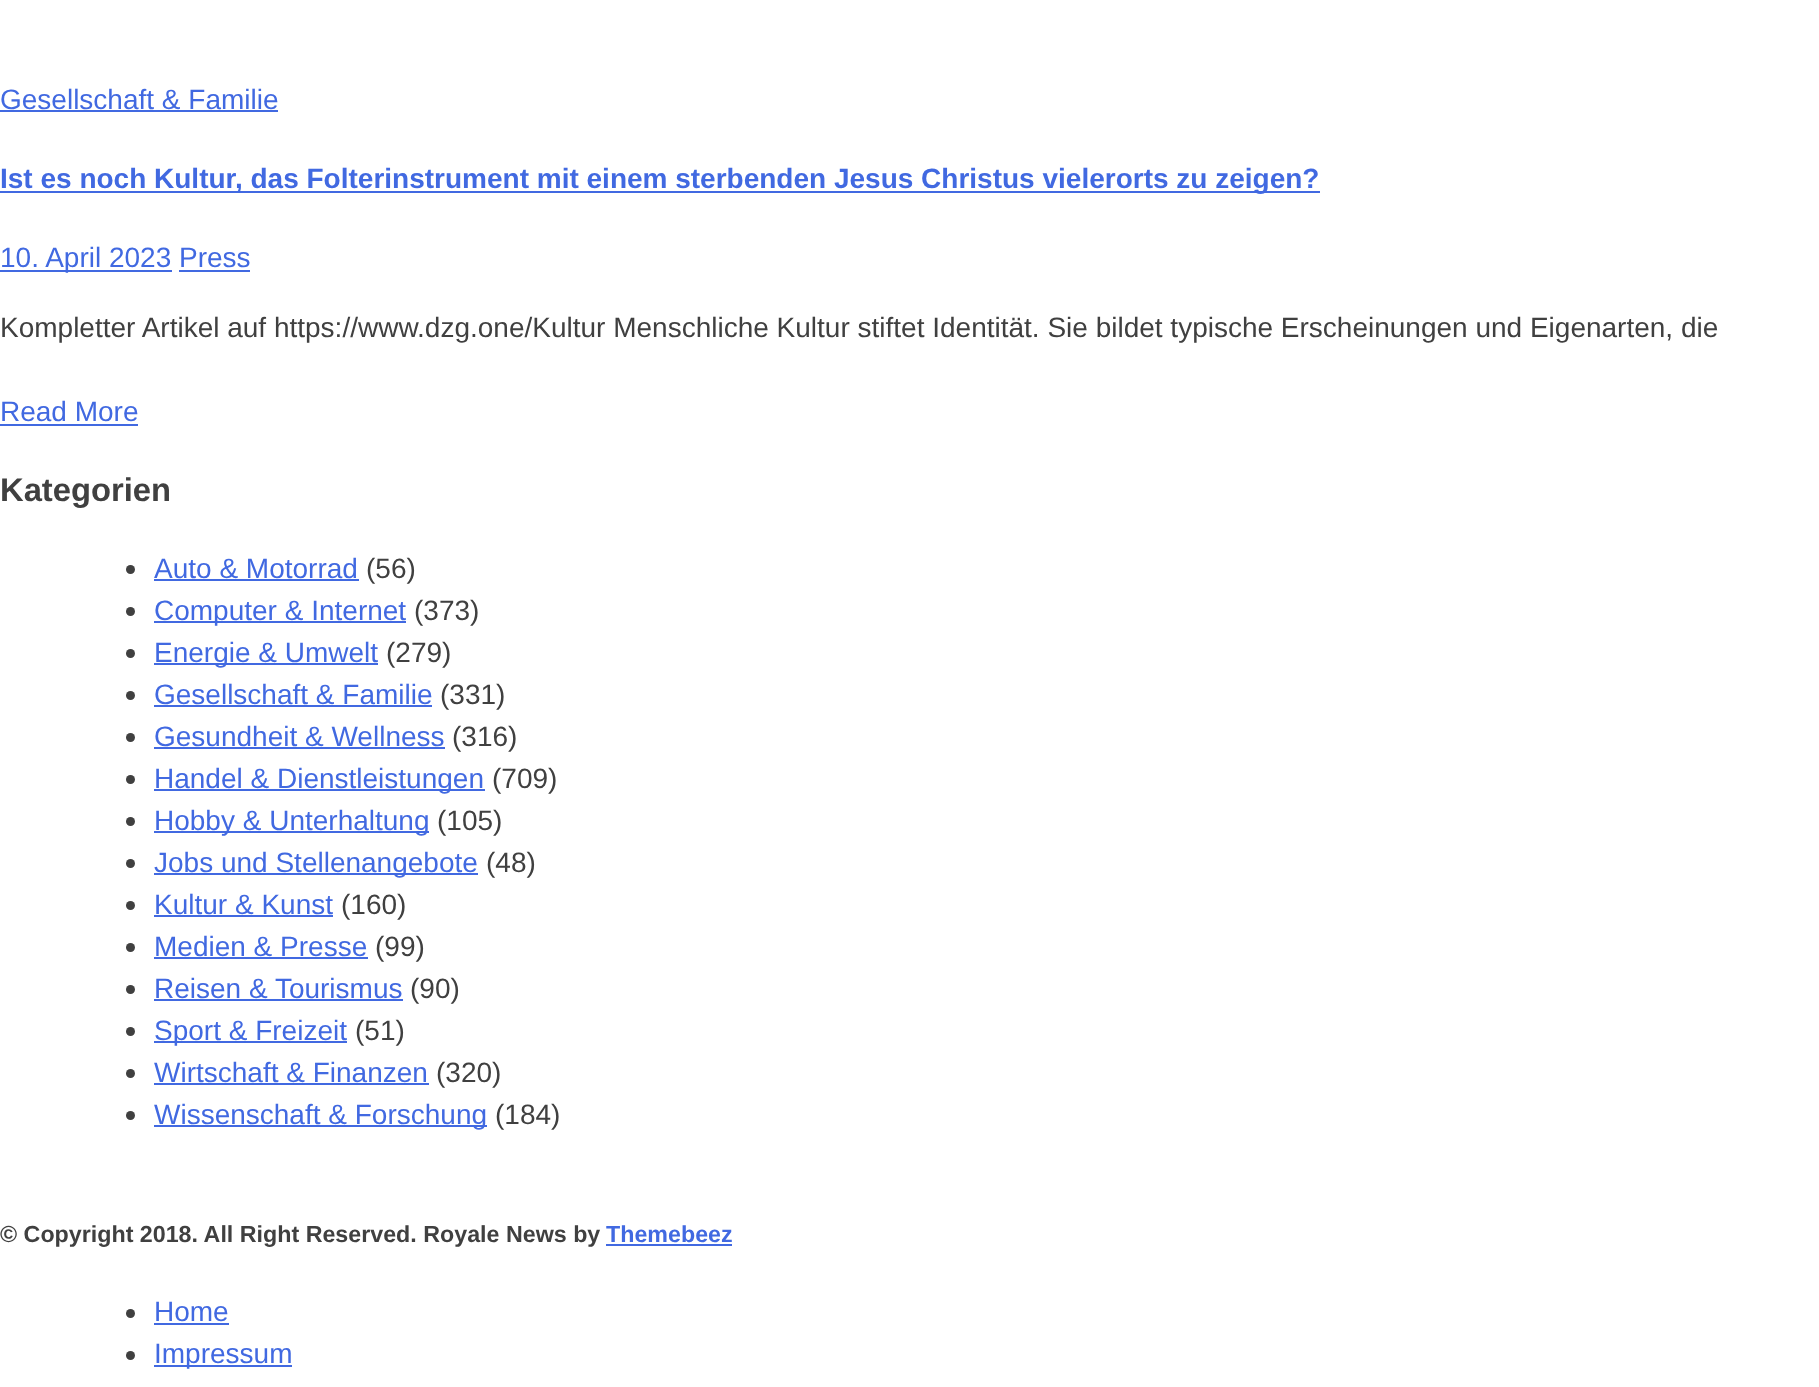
<svg xmlns="http://www.w3.org/2000/svg" width="1819" height="1387" viewBox="0 0 1819 1387">
  <rect width="100%" height="100%" fill="#fff"/>
  <path d="M0 110h278v2H0z" fill="#4169e1"/>
  <path d="M0 191h1320v2H0z" fill="#4169e1"/>
  <path d="M0 270h172v2H0z" fill="#4169e1"/>
  <path d="M179 270h71v2H179z" fill="#4169e1"/>
  <path d="M0 424h138v2H0z" fill="#4169e1"/>
  <circle cx="130.5" cy="569.5" r="4.5" fill="#404040"/>
  <path d="M154 579h205v2H154z" fill="#4169e1"/>
  <circle cx="130.5" cy="611.5" r="4.5" fill="#404040"/>
  <path d="M154 621h252v2H154z" fill="#4169e1"/>
  <circle cx="130.5" cy="653.5" r="4.5" fill="#404040"/>
  <path d="M154 663h224v2H154z" fill="#4169e1"/>
  <circle cx="130.5" cy="695.5" r="4.5" fill="#404040"/>
  <path d="M154 705h278v2H154z" fill="#4169e1"/>
  <circle cx="130.5" cy="737.5" r="4.5" fill="#404040"/>
  <path d="M154 747h291v2H154z" fill="#4169e1"/>
  <circle cx="130.5" cy="779.5" r="4.5" fill="#404040"/>
  <path d="M154 789h331v2H154z" fill="#4169e1"/>
  <circle cx="130.5" cy="821.5" r="4.5" fill="#404040"/>
  <path d="M154 831h275v2H154z" fill="#4169e1"/>
  <circle cx="130.5" cy="863.5" r="4.5" fill="#404040"/>
  <path d="M154 873h324v2H154z" fill="#4169e1"/>
  <circle cx="130.5" cy="905.5" r="4.5" fill="#404040"/>
  <path d="M154 915h179v2H154z" fill="#4169e1"/>
  <circle cx="130.5" cy="947.5" r="4.5" fill="#404040"/>
  <path d="M154 957h214v2H154z" fill="#4169e1"/>
  <circle cx="130.5" cy="989.5" r="4.5" fill="#404040"/>
  <path d="M154 999h249v2H154z" fill="#4169e1"/>
  <circle cx="130.5" cy="1031.5" r="4.5" fill="#404040"/>
  <path d="M154 1041h193v2H154z" fill="#4169e1"/>
  <circle cx="130.5" cy="1073.5" r="4.5" fill="#404040"/>
  <path d="M154 1083h275v2H154z" fill="#4169e1"/>
  <circle cx="130.5" cy="1115.5" r="4.5" fill="#404040"/>
  <path d="M154 1125h333v2H154z" fill="#4169e1"/>
  <path d="M606 1244h126v2H606z" fill="#4169e1"/>
  <circle cx="130.5" cy="1313.5" r="4.5" fill="#404040"/>
  <path d="M154 1323h75v2H154z" fill="#4169e1"/>
  <circle cx="130.5" cy="1355.5" r="4.5" fill="#404040"/>
  <path d="M154 1365h138v2H154z" fill="#4169e1"/>
  <text x="0" y="109" font-family="Liberation Sans" font-size="28" fill="#4169e1">Gesellschaft &amp; Familie</text>
  <text x="0" y="188" font-family="Liberation Sans" font-size="28" font-weight="bold" fill="#4169e1">Ist es noch Kultur, das Folterinstrument mit einem sterbenden Jesus Christus vielerorts zu zeigen?</text>
  <text x="0" y="267" font-family="Liberation Sans" font-size="28" fill="#4169e1">10. April 2023 Press</text>
  <text x="0" y="337" font-family="Liberation Sans" font-size="28" fill="#404040">Kompletter Artikel auf https://www.dzg.one/Kultur Menschliche Kultur stiftet Identität. Sie bildet typische Erscheinungen und Eigenarten, die</text>
  <text x="0" y="421" font-family="Liberation Sans" font-size="28" fill="#4169e1">Read More</text>
  <text x="0" y="501" font-family="Liberation Sans" font-size="32.75" font-weight="bold" fill="#404040">Kategorien</text>
  <text x="154" y="578" font-family="Liberation Sans" font-size="28" fill="#4169e1">Auto &amp; Motorrad</text>
  <text x="366" y="578" font-family="Liberation Sans" font-size="28" fill="#404040">(56)</text>
  <text x="154" y="620" font-family="Liberation Sans" font-size="28" fill="#4169e1">Computer &amp; Internet</text>
  <text x="414" y="620" font-family="Liberation Sans" font-size="28" fill="#404040">(373)</text>
  <text x="154" y="662" font-family="Liberation Sans" font-size="28" fill="#4169e1">Energie &amp; Umwelt</text>
  <text x="386" y="662" font-family="Liberation Sans" font-size="28" fill="#404040">(279)</text>
  <text x="154" y="704" font-family="Liberation Sans" font-size="28" fill="#4169e1">Gesellschaft &amp; Familie</text>
  <text x="440" y="704" font-family="Liberation Sans" font-size="28" fill="#404040">(331)</text>
  <text x="154" y="746" font-family="Liberation Sans" font-size="28" fill="#4169e1">Gesundheit &amp; Wellness</text>
  <text x="452" y="746" font-family="Liberation Sans" font-size="28" fill="#404040">(316)</text>
  <text x="154" y="788" font-family="Liberation Sans" font-size="28" fill="#4169e1">Handel &amp; Dienstleistungen</text>
  <text x="492" y="788" font-family="Liberation Sans" font-size="28" fill="#404040">(709)</text>
  <text x="154" y="830" font-family="Liberation Sans" font-size="28" fill="#4169e1">Hobby &amp; Unterhaltung</text>
  <text x="437" y="830" font-family="Liberation Sans" font-size="28" fill="#404040">(105)</text>
  <text x="154" y="872" font-family="Liberation Sans" font-size="28" fill="#4169e1">Jobs und Stellenangebote</text>
  <text x="486" y="872" font-family="Liberation Sans" font-size="28" fill="#404040">(48)</text>
  <text x="154" y="914" font-family="Liberation Sans" font-size="28" fill="#4169e1">Kultur &amp; Kunst</text>
  <text x="341" y="914" font-family="Liberation Sans" font-size="28" fill="#404040">(160)</text>
  <text x="154" y="956" font-family="Liberation Sans" font-size="28" fill="#4169e1">Medien &amp; Presse</text>
  <text x="375" y="956" font-family="Liberation Sans" font-size="28" fill="#404040">(99)</text>
  <text x="154" y="998" font-family="Liberation Sans" font-size="28" fill="#4169e1">Reisen &amp; Tourismus</text>
  <text x="410" y="998" font-family="Liberation Sans" font-size="28" fill="#404040">(90)</text>
  <text x="154" y="1040" font-family="Liberation Sans" font-size="28" fill="#4169e1">Sport &amp; Freizeit</text>
  <text x="355" y="1040" font-family="Liberation Sans" font-size="28" fill="#404040">(51)</text>
  <text x="154" y="1082" font-family="Liberation Sans" font-size="28" fill="#4169e1">Wirtschaft &amp; Finanzen</text>
  <text x="436" y="1082" font-family="Liberation Sans" font-size="28" fill="#404040">(320)</text>
  <text x="154" y="1124" font-family="Liberation Sans" font-size="28" fill="#4169e1">Wissenschaft &amp; Forschung</text>
  <text x="495" y="1124" font-family="Liberation Sans" font-size="28" fill="#404040">(184)</text>
  <text x="0" y="1242" font-family="Liberation Sans" font-size="23.25" font-weight="bold" fill="#404040">© Copyright 2018. All Right Reserved. Royale News by</text>
  <text x="606" y="1242" font-family="Liberation Sans" font-size="23.25" font-weight="bold" fill="#4169e1">Themebeez</text>
  <g font-family="Liberation Sans" font-size="28" fill="#4169e1">
    <text x="154" y="1321">Home</text>
    <text x="154" y="1363">Impressum</text>
  </g>
</svg>
